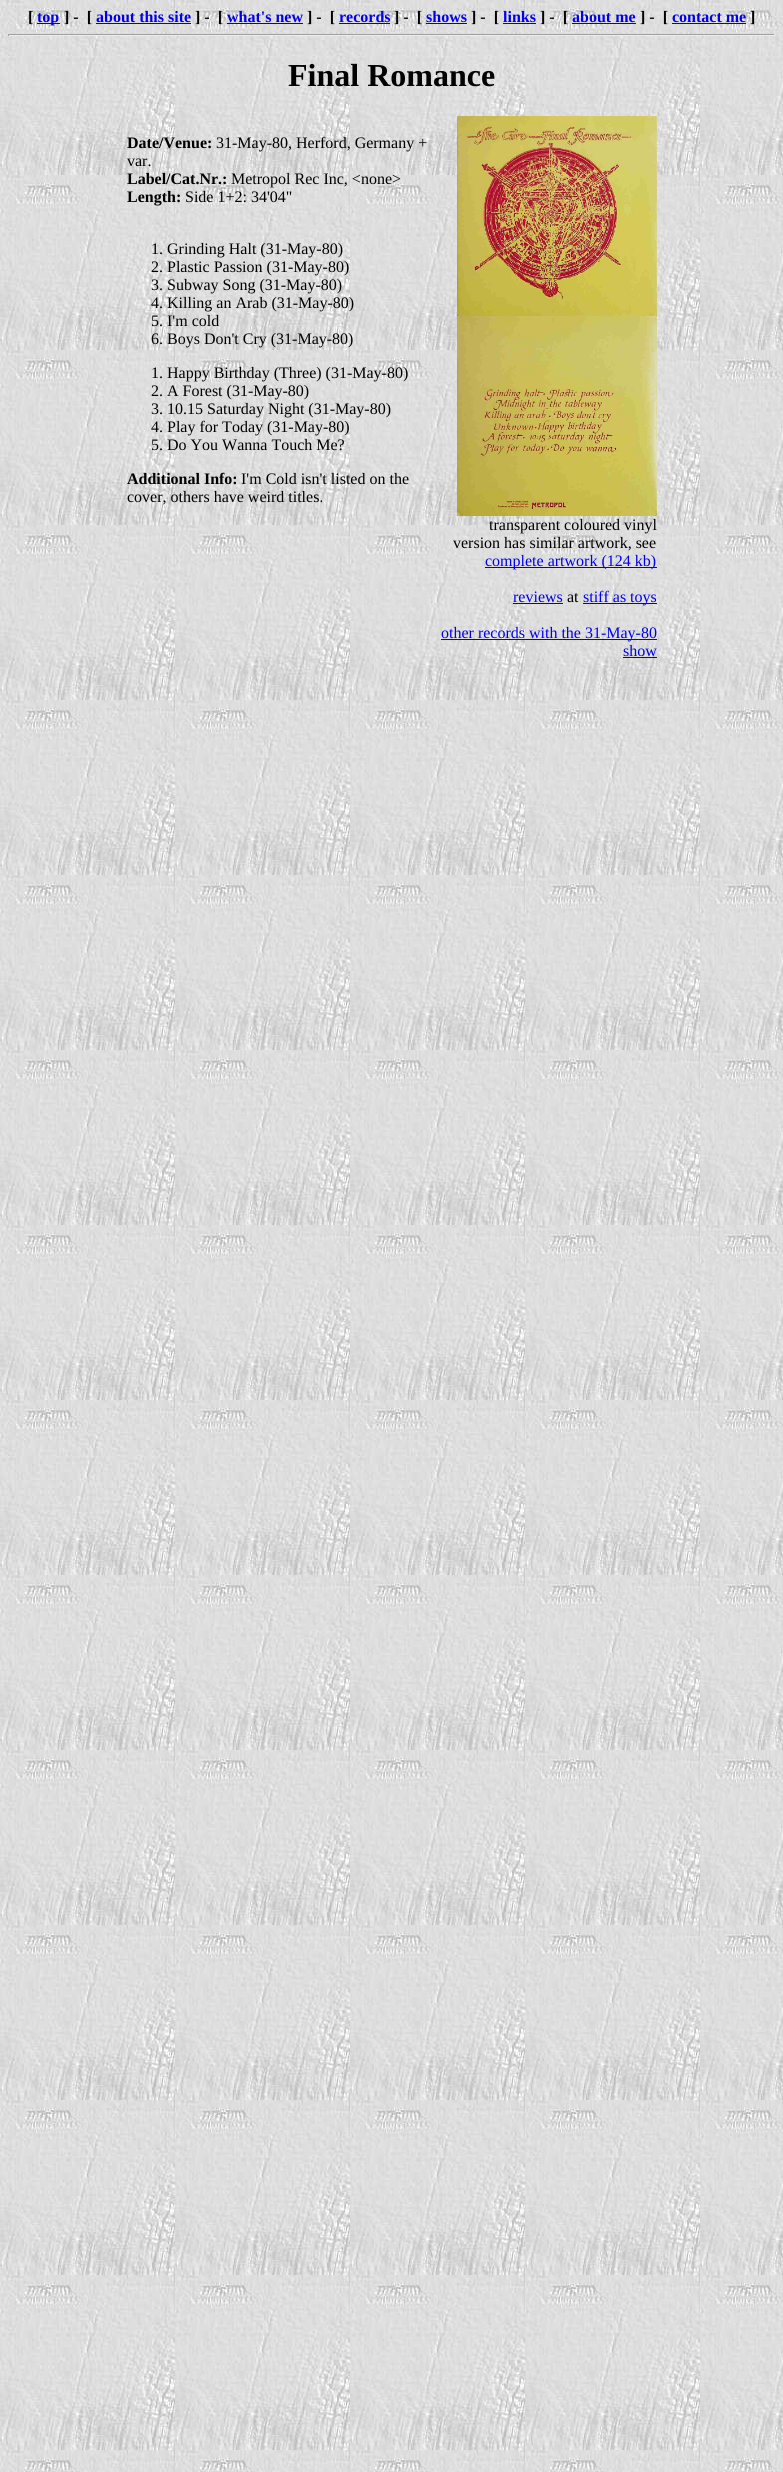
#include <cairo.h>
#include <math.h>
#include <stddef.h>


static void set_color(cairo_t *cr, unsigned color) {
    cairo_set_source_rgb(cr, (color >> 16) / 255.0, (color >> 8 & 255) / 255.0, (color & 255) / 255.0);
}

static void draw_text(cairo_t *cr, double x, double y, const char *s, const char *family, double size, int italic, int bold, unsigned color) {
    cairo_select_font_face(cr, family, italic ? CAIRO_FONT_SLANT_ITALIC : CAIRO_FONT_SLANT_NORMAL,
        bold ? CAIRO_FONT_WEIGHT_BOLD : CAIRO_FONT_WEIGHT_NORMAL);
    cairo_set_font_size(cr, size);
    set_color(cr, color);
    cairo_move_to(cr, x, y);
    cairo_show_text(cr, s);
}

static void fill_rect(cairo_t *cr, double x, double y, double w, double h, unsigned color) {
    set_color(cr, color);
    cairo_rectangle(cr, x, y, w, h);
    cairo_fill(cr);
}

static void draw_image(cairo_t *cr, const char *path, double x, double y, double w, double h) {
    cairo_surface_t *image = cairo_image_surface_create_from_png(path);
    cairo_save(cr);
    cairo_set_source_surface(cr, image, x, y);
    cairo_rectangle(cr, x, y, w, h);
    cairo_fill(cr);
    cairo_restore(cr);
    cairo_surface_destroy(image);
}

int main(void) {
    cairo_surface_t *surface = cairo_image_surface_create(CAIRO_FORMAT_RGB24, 783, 2472);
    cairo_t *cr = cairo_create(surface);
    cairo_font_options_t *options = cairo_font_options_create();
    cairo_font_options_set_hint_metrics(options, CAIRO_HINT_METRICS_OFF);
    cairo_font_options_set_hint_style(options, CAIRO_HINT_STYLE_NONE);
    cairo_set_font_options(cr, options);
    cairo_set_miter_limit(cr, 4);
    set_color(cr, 0xFFFFFF);
    cairo_paint(cr);
    draw_image(cr, "assets/img1.png", 0, 0, 783, 2472);
    draw_text(cr, 28, 22, "[", "Liberation Serif", 16, 0, 1, 0x000000);
    fill_rect(cr, 37, 23, 23, 1, 0x0000EE);
    draw_text(cr, 37, 22, "top", "Liberation Serif", 16, 0, 1, 0x0000EE);
    draw_text(cr, 64, 22, "] -  [", "Liberation Serif", 16, 0, 1, 0x000000);
    draw_text(cr, 96, 22, "about this site", "Liberation Serif", 16, 0, 1, 0x0000EE);
    fill_rect(cr, 96, 23, 95, 1, 0x0000EE);
    draw_text(cr, 195, 22, "] -  [", "Liberation Serif", 16, 0, 1, 0x000000);
    draw_text(cr, 227, 22, "what's new", "Liberation Serif", 16, 0, 1, 0x0000EE);
    fill_rect(cr, 227, 23, 76, 1, 0x0000EE);
    draw_text(cr, 307, 22, "] -  [", "Liberation Serif", 16, 0, 1, 0x000000);
    draw_text(cr, 339, 22, "records", "Liberation Serif", 16, 0, 1, 0x0000EE);
    fill_rect(cr, 339, 23, 51, 1, 0x0000EE);
    draw_text(cr, 394, 22, "] -  [", "Liberation Serif", 16, 0, 1, 0x000000);
    draw_text(cr, 426, 22, "shows", "Liberation Serif", 16, 0, 1, 0x0000EE);
    fill_rect(cr, 426, 23, 41, 1, 0x0000EE);
    draw_text(cr, 471, 22, "] -  [", "Liberation Serif", 16, 0, 1, 0x000000);
    draw_text(cr, 503, 22, "links", "Liberation Serif", 16, 0, 1, 0x0000EE);
    fill_rect(cr, 503, 23, 33, 1, 0x0000EE);
    draw_text(cr, 540, 22, "] -  [", "Liberation Serif", 16, 0, 1, 0x000000);
    draw_text(cr, 572, 22, "about me", "Liberation Serif", 16, 0, 1, 0x0000EE);
    fill_rect(cr, 572, 23, 64, 1, 0x0000EE);
    draw_text(cr, 640, 22, "] -  [", "Liberation Serif", 16, 0, 1, 0x000000);
    draw_text(cr, 672, 22, "contact me", "Liberation Serif", 16, 0, 1, 0x0000EE);
    fill_rect(cr, 672, 23, 74, 1, 0x0000EE);
    draw_text(cr, 750, 22, "]", "Liberation Serif", 16, 0, 1, 0x000000);
    fill_rect(cr, 8, 34, 767, 1, 0x9F9F9F);
    fill_rect(cr, 774, 34, 1, 2, 0xEEEEEE);
    fill_rect(cr, 8, 35, 767, 1, 0xEEEEEE);
    fill_rect(cr, 8, 34, 1, 2, 0x9F9F9F);
    draw_text(cr, 288, 86, "Final Romance", "Liberation Serif", 32, 0, 1, 0x000000);
    draw_text(cr, 127, 148, "Date/Venue:", "Liberation Serif", 16, 0, 1, 0x000000);
    draw_text(cr, 216, 148, "31-May-80, Herford, Germany +", "Liberation Serif", 16, 0, 0, 0x000000);
    draw_text(cr, 127, 166, "var.", "Liberation Serif", 16, 0, 0, 0x000000);
    draw_text(cr, 127, 184, "Label/Cat.Nr.:", "Liberation Serif", 16, 0, 1, 0x000000);
    draw_text(cr, 231, 184, "Metropol Rec Inc, <none>", "Liberation Serif", 16, 0, 0, 0x000000);
    draw_text(cr, 127, 202, "Length:", "Liberation Serif", 16, 0, 1, 0x000000);
    draw_text(cr, 185, 202, "Side 1+2: 34'04\"", "Liberation Serif", 16, 0, 0, 0x000000);
    draw_text(cr, 151, 254, "1. Grinding Halt (31-May-80)", "Liberation Serif", 16, 0, 0, 0x000000);
    draw_text(cr, 151, 272, "2. Plastic Passion (31-May-80)", "Liberation Serif", 16, 0, 0, 0x000000);
    draw_text(cr, 151, 290, "3. Subway Song (31-May-80)", "Liberation Serif", 16, 0, 0, 0x000000);
    draw_text(cr, 151, 308, "4. Killing an Arab (31-May-80)", "Liberation Serif", 16, 0, 0, 0x000000);
    draw_text(cr, 151, 326, "5. I'm cold", "Liberation Serif", 16, 0, 0, 0x000000);
    draw_text(cr, 151, 344, "6. Boys Don't Cry (31-May-80)", "Liberation Serif", 16, 0, 0, 0x000000);
    draw_text(cr, 151, 378, "1. Happy Birthday (Three) (31-May-80)", "Liberation Serif", 16, 0, 0, 0x000000);
    draw_text(cr, 151, 396, "2. A Forest (31-May-80)", "Liberation Serif", 16, 0, 0, 0x000000);
    draw_text(cr, 151, 414, "3. 10.15 Saturday Night (31-May-80)", "Liberation Serif", 16, 0, 0, 0x000000);
    draw_text(cr, 151, 432, "4. Play for Today (31-May-80)", "Liberation Serif", 16, 0, 0, 0x000000);
    draw_text(cr, 151, 450, "5. Do You Wanna Touch Me?", "Liberation Serif", 16, 0, 0, 0x000000);
    draw_text(cr, 127, 484, "Additional Info:", "Liberation Serif", 16, 0, 1, 0x000000);
    draw_text(cr, 241, 484, "I'm Cold isn't listed on the", "Liberation Serif", 16, 0, 0, 0x000000);
    draw_text(cr, 127, 502, "cover, others have weird titles.", "Liberation Serif", 16, 0, 0, 0x000000);
    draw_image(cr, "assets/img2.png", 457, 116, 200, 200);
    draw_image(cr, "assets/img3.png", 457, 316, 200, 200);
    draw_text(cr, 489, 530, "transparent coloured vinyl", "Liberation Serif", 16, 0, 0, 0x000000);
    draw_text(cr, 453, 548, "version has similar artwork, see", "Liberation Serif", 16, 0, 0, 0x000000);
    fill_rect(cr, 485, 567, 172, 1, 0x0000EE);
    draw_text(cr, 485, 566, "complete artwork (124 kb)", "Liberation Serif", 16, 0, 0, 0x0000EE);
    draw_text(cr, 513, 602, "reviews", "Liberation Serif", 16, 0, 0, 0x0000EE);
    fill_rect(cr, 513, 603, 50, 1, 0x0000EE);
    draw_text(cr, 567, 602, "at", "Liberation Serif", 16, 0, 0, 0x000000);
    fill_rect(cr, 583, 603, 74, 1, 0x0000EE);
    draw_text(cr, 583, 602, "stiff as toys", "Liberation Serif", 16, 0, 0, 0x0000EE);
    fill_rect(cr, 441, 639, 216, 1, 0x0000EE);
    draw_text(cr, 441, 638, "other records with the 31-May-80", "Liberation Serif", 16, 0, 0, 0x0000EE);
    draw_text(cr, 623, 656, "show", "Liberation Serif", 16, 0, 0, 0x0000EE);
    fill_rect(cr, 623, 657, 34, 1, 0x0000EE);
    cairo_surface_write_to_png(surface, "output.png");
    cairo_font_options_destroy(options);
    cairo_destroy(cr);
    cairo_surface_destroy(surface);
    return 0;
}
